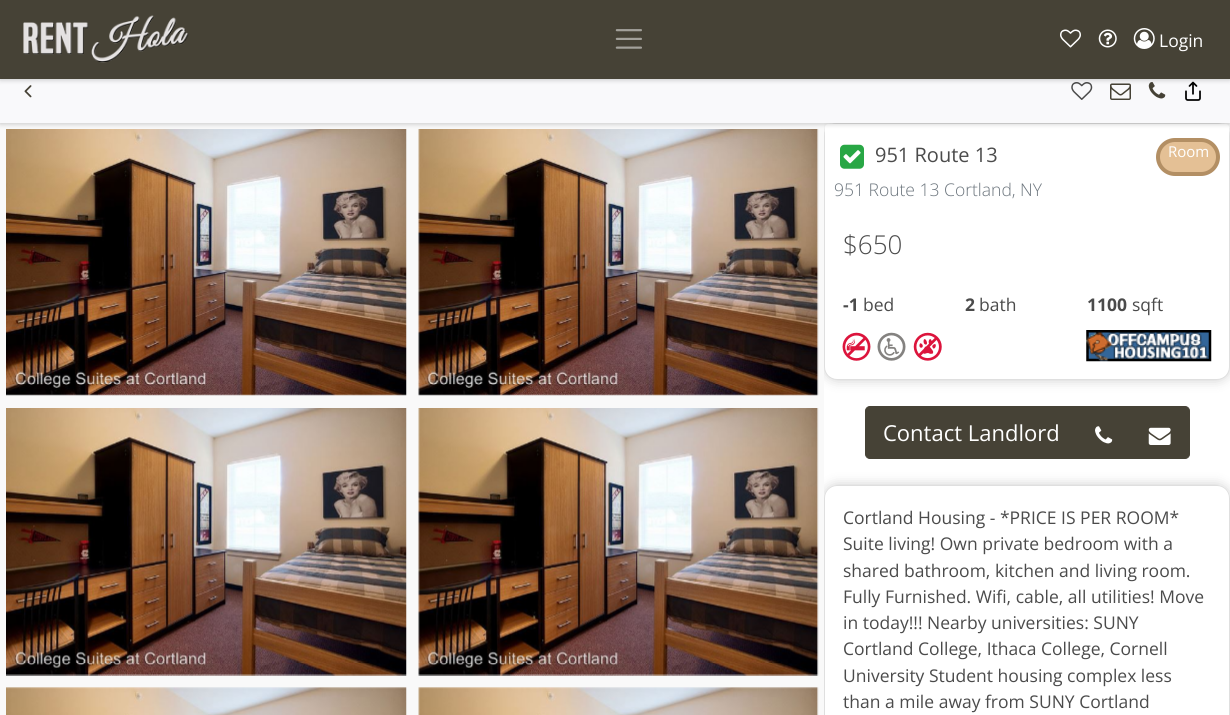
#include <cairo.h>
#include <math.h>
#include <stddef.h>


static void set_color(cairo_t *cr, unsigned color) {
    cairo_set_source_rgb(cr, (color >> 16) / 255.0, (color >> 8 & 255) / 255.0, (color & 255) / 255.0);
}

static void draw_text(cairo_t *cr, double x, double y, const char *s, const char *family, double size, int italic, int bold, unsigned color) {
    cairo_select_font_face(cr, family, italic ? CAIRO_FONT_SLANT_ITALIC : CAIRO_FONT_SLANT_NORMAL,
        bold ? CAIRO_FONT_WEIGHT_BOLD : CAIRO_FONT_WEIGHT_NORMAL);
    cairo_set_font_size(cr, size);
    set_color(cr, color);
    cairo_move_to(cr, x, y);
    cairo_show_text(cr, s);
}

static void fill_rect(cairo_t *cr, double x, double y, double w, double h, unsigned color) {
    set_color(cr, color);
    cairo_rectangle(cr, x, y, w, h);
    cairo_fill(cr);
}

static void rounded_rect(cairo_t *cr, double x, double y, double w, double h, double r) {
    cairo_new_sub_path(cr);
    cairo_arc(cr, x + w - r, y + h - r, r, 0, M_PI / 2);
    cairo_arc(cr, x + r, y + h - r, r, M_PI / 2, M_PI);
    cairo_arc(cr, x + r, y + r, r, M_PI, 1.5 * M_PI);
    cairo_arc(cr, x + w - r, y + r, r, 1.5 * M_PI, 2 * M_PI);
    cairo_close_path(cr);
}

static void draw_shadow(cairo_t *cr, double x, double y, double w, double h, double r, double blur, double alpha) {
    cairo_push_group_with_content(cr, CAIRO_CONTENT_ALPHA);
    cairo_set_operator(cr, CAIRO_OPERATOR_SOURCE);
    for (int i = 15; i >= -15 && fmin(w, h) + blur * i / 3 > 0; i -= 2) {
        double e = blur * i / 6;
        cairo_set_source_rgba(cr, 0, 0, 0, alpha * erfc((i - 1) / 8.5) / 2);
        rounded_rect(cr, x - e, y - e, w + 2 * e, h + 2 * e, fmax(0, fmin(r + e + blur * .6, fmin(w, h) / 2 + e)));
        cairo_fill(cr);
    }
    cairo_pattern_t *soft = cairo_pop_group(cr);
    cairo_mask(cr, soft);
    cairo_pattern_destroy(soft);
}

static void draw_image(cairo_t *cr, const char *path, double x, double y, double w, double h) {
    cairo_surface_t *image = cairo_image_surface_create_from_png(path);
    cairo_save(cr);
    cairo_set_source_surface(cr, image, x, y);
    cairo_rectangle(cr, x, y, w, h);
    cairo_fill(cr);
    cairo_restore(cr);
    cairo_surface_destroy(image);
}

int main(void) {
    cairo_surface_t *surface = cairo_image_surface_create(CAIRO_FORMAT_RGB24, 1230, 715);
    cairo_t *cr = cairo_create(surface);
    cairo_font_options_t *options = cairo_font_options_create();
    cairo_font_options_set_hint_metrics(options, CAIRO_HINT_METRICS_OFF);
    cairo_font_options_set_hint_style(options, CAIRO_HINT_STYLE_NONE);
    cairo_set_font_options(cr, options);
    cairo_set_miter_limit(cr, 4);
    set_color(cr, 0xFFFFFF);
    cairo_paint(cr);
    fill_rect(cr, 0, 123, 824, 592, 0xF9F9F9);
    draw_image(cr, "assets/img11.png", 6, 129, 401, 267);
    draw_image(cr, "assets/img12.png", 418, 129, 401, 267);
    cairo_save(cr);
    cairo_rectangle(cr, 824, 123, 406, 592);
    cairo_clip(cr);
    set_color(cr, 0x000000);
    draw_shadow(cr, 824, 123, 406, 257, 13, 6, 0.2);
    cairo_restore(cr);
    set_color(cr, 0xFFFFFF);
    rounded_rect(cr, 824.5, 123.5, 405, 256, 12.5);
    cairo_fill_preserve(cr);
    set_color(cr, 0xDFDFDF);
    cairo_set_line_width(cr, 1);
    cairo_stroke(cr);
    set_color(cr, 0xFFFFFF);
    cairo_new_path(cr);
    cairo_move_to(cr, 828, 124);
    cairo_line_to(cr, 1226, 124);
    cairo_curve_to(cr, 1227.5, 124, 1229, 125.5, 1229, 127);
    cairo_line_to(cr, 1229, 211);
    cairo_line_to(cr, 825, 211);
    cairo_line_to(cr, 825, 127);
    cairo_curve_to(cr, 825, 125.5, 826.5, 124, 828, 124);
    cairo_close_path(cr);
    cairo_fill(cr);
    set_color(cr, 0x000000);
    draw_shadow(cr, 0, 63, 1230, 61, 0, 2.5, 0.2);
    fill_rect(cr, 0, 79, 1230, 44, 0xF9F9FB);
    draw_image(cr, "assets/img6.png", 24, 85, 8, 13);
    draw_image(cr, "assets/img7.png", 1071, 82, 22, 18);
    draw_image(cr, "assets/img8.png", 1110, 83, 21, 17);
    draw_image(cr, "assets/img9.png", 1148, 82, 18, 17);
    draw_image(cr, "assets/img10.png", 1185, 81, 16, 20);
    set_color(cr, 0x000000);
    draw_shadow(cr, 0, 1, 1230, 79, 0, 2.5, 0.2);
    fill_rect(cr, 0, 0, 1230, 79, 0x464236);
    draw_image(cr, "assets/img1.png", 23, 15, 166, 48);
    draw_image(cr, "assets/img2.png", 615, 29, 27, 20);
    draw_image(cr, "assets/img3.png", 1060, 29, 21, 19);
    draw_image(cr, "assets/img4.png", 1098, 29, 19, 19);
    draw_image(cr, "assets/img5.png", 1133, 28, 22, 21);
    draw_text(cr, 1159, 47, "Login", "Open Sans", 17.5, 0, 0, 0xFFFFFF);
    draw_image(cr, "assets/img13.png", 6, 408, 401, 268);
    draw_image(cr, "assets/img14.png", 418, 408, 401, 268);
    draw_image(cr, "assets/img15.png", 6, 687, 401, 28);
    draw_image(cr, "assets/img16.png", 418, 687, 401, 28);
    draw_image(cr, "assets/img17.png", 840, 144, 24, 25);
    draw_text(cr, 875, 162, "951 Route 13", "Open Sans", 20, 0, 0, 0x4B4B4B);
    set_color(cr, 0xE4C095);
    rounded_rect(cr, 1158, 140, 60, 34, 17);
    cairo_fill_preserve(cr);
    set_color(cr, 0xB38F64);
    cairo_set_line_width(cr, 4);
    cairo_stroke(cr);
    draw_text(cr, 1168, 157, "Room", "Open Sans", 15, 0, 0, 0xFFFFFF);
    draw_text(cr, 834, 196, "951 Route 13 Cortland, NY", "Open Sans Light", 17.5, 0, 0, 0x6C757D);
    draw_text(cr, 843, 254, "$650", "Open Sans Light", 26, 0, 0, 0x4B4B4B);
    draw_text(cr, 843, 311, "-1", "Open Sans", 17.5, 0, 1, 0x4B4B4B);
    draw_text(cr, 863, 311, "bed", "Open Sans", 17.5, 0, 0, 0x4B4B4B);
    draw_text(cr, 965, 311, "2", "Open Sans", 17.5, 0, 1, 0x4B4B4B);
    draw_text(cr, 979, 311, "bath", "Open Sans", 17.5, 0, 0, 0x4B4B4B);
    draw_text(cr, 1087, 311, "1100", "Open Sans", 17.5, 0, 1, 0x4B4B4B);
    draw_text(cr, 1132, 311, "sqft", "Open Sans", 17.5, 0, 0, 0x4B4B4B);
    draw_image(cr, "assets/img18.png", 842, 332, 29, 29);
    draw_image(cr, "assets/img19.png", 877, 332, 29, 29);
    draw_image(cr, "assets/img20.png", 913, 332, 29, 29);
    draw_image(cr, "assets/img21.png", 1086, 330, 126, 32);
    set_color(cr, 0x464236);
    cairo_new_path(cr);
    cairo_move_to(cr, 870, 406.5);
    cairo_line_to(cr, 1077.5, 406.5);
    cairo_line_to(cr, 1077.5, 458.5);
    cairo_line_to(cr, 870, 458.5);
    cairo_curve_to(cr, 867.5, 458.5, 865.5, 456.5, 865.5, 454);
    cairo_line_to(cr, 865.5, 411);
    cairo_curve_to(cr, 865.5, 408.5, 867.5, 406.5, 870, 406.5);
    cairo_close_path(cr);
    cairo_fill_preserve(cr);
    cairo_set_line_width(cr, 1);
    cairo_stroke(cr);
    draw_text(cr, 883, 441, "Contact Landlord", "Open Sans", 22, 0, 0, 0xFFFFFF);
    fill_rect(cr, 1078, 406, 52, 53, 0x464236);
    draw_image(cr, "assets/img22.png", 1095, 426, 18, 18);
    cairo_new_path(cr);
    cairo_move_to(cr, 1130.5, 406.5);
    cairo_line_to(cr, 1185, 406.5);
    cairo_curve_to(cr, 1187.5, 406.5, 1189.5, 408.5, 1189.5, 411);
    cairo_line_to(cr, 1189.5, 454);
    cairo_curve_to(cr, 1189.5, 456.5, 1187.5, 458.5, 1185, 458.5);
    cairo_line_to(cr, 1130.5, 458.5);
    cairo_close_path(cr);
    cairo_fill_preserve(cr);
    cairo_stroke(cr);
    draw_image(cr, "assets/img23.png", 1148, 427, 23, 18);
    cairo_save(cr);
    cairo_rectangle(cr, 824, 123, 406, 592);
    cairo_clip(cr);
    set_color(cr, 0x000000);
    draw_shadow(cr, 824, 485, 406, 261, 13, 6, 0.2);
    cairo_restore(cr);
    set_color(cr, 0xFFFFFF);
    cairo_new_path(cr);
    cairo_move_to(cr, 837, 485);
    cairo_line_to(cr, 1217, 485);
    cairo_curve_to(cr, 1224, 485, 1230, 491, 1230, 498);
    cairo_line_to(cr, 1230, 715);
    cairo_line_to(cr, 824, 715);
    cairo_line_to(cr, 824, 498);
    cairo_curve_to(cr, 824, 491, 830, 485, 837, 485);
    cairo_close_path(cr);
    cairo_fill(cr);
    rounded_rect(cr, 824.5, 485.5, 405, 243, 12.5);
    set_color(cr, 0xDFDFDF);
    cairo_stroke(cr);
    draw_text(cr, 843, 524, "Cortland Housing - *PRICE IS PER ROOM*", "Open Sans", 17.5, 0, 0, 0x4B4B4B);
    draw_text(cr, 843, 550, "Suite living! Own private bedroom with a", "Open Sans", 17.5, 0, 0, 0x4B4B4B);
    draw_text(cr, 843, 577, "shared bathroom, kitchen and living room.", "Open Sans", 17.5, 0, 0, 0x4B4B4B);
    draw_text(cr, 843, 603, "Fully Furnished. Wifi, cable, all utilities! Move", "Open Sans", 17.5, 0, 0, 0x4B4B4B);
    draw_text(cr, 843, 629, "in today!!! Nearby universities: SUNY", "Open Sans", 17.5, 0, 0, 0x4B4B4B);
    draw_text(cr, 843, 655, "Cortland College, Ithaca College, Cornell", "Open Sans", 17.5, 0, 0, 0x4B4B4B);
    draw_text(cr, 843, 682, "University Student housing complex less", "Open Sans", 17.5, 0, 0, 0x4B4B4B);
    draw_text(cr, 843, 708, "than a mile away from SUNY Cortland", "Open Sans", 17.5, 0, 0, 0x4B4B4B);
    cairo_surface_write_to_png(surface, "output.png");
    cairo_font_options_destroy(options);
    cairo_destroy(cr);
    cairo_surface_destroy(surface);
    return 0;
}
